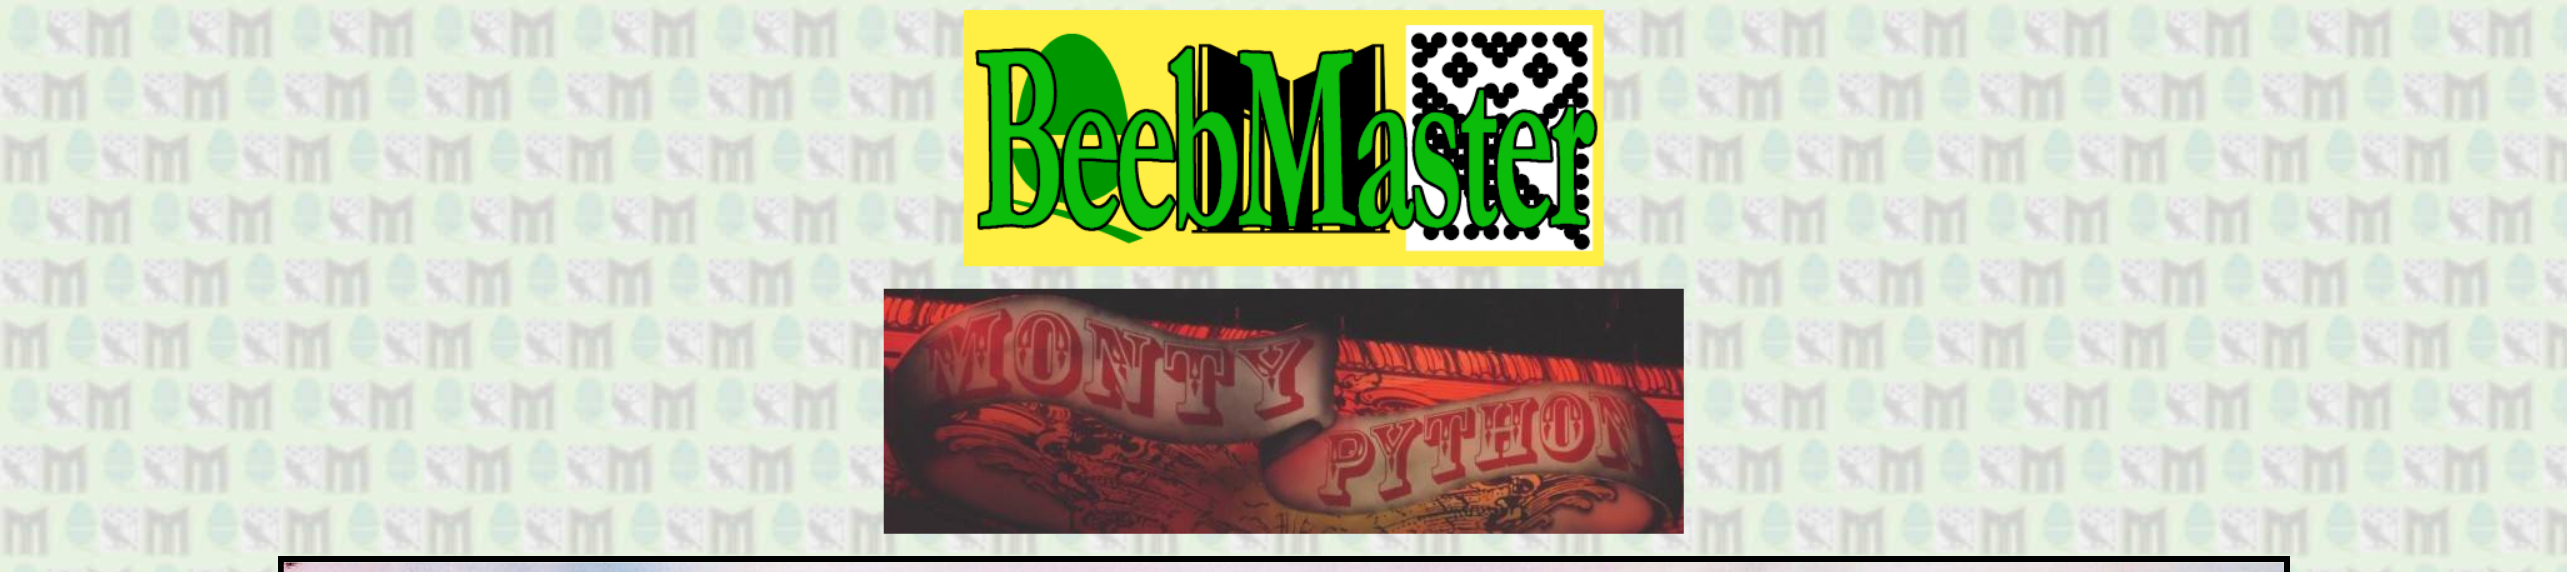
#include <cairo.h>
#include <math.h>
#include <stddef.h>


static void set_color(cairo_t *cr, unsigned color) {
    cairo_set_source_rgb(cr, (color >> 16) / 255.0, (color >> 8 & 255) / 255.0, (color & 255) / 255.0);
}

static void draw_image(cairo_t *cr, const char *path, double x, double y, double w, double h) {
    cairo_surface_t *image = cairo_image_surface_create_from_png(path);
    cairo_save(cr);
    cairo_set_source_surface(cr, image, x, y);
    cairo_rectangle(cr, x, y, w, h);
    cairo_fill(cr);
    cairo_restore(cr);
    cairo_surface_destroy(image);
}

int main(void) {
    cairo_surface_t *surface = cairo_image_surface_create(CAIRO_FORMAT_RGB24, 2567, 572);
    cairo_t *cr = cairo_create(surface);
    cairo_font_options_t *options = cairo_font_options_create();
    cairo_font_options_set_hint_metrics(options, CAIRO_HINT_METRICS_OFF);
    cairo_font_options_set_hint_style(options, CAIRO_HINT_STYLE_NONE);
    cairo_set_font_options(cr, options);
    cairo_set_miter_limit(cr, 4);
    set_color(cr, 0xFFFFFF);
    cairo_paint(cr);
    draw_image(cr, "assets/img1.png", 0, 0, 2567, 572);
    draw_image(cr, "assets/img2.png", 963, 10, 641, 257);
    draw_image(cr, "assets/img3.png", 883, 288, 801, 246);
    cairo_rectangle(cr, 281, 559, 2006, 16);
    set_color(cr, 0x000000);
    cairo_set_line_width(cr, 6);
    cairo_stroke(cr);
    draw_image(cr, "assets/img4.png", 283, 562, 2001, 10);
    cairo_surface_write_to_png(surface, "output.png");
    cairo_font_options_destroy(options);
    cairo_destroy(cr);
    cairo_surface_destroy(surface);
    return 0;
}
